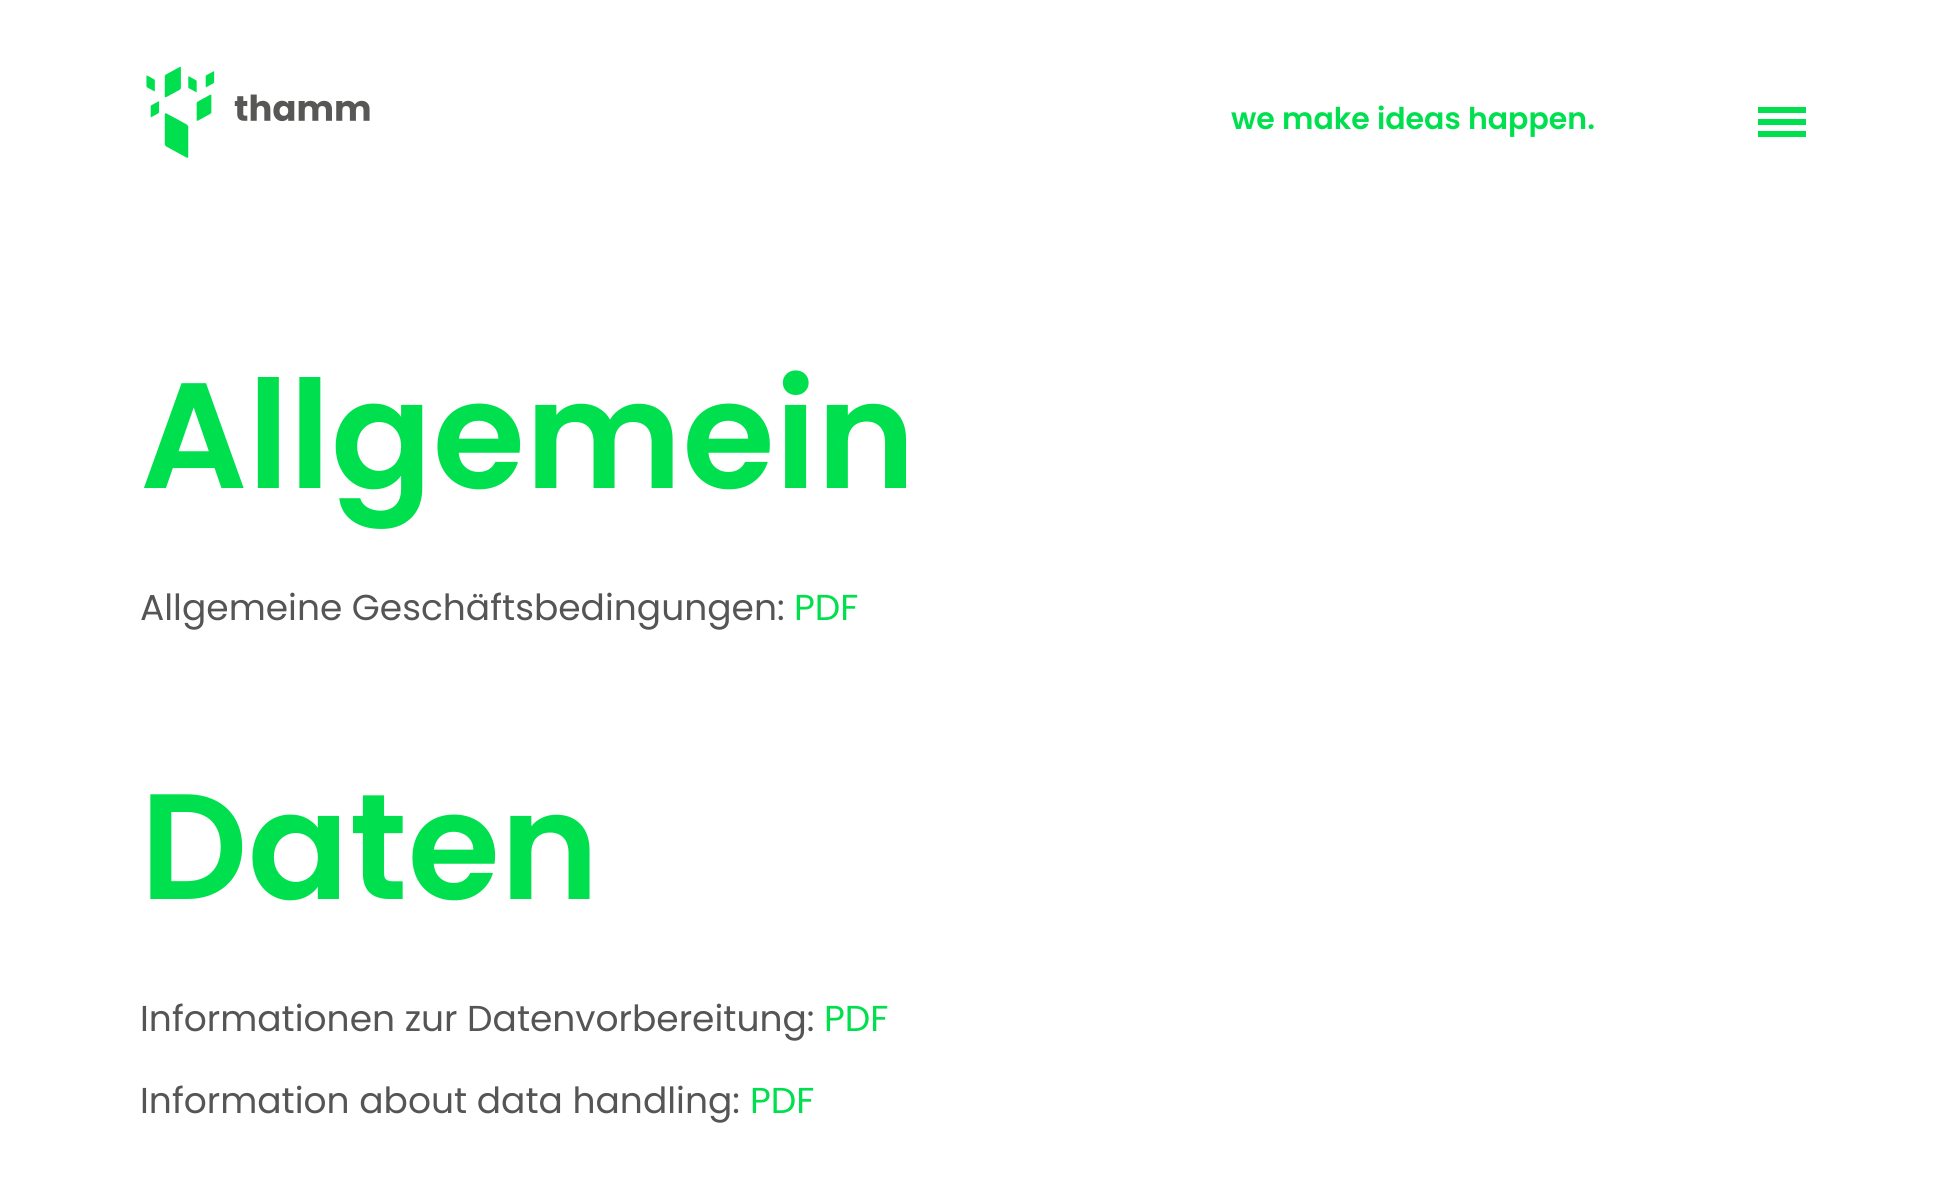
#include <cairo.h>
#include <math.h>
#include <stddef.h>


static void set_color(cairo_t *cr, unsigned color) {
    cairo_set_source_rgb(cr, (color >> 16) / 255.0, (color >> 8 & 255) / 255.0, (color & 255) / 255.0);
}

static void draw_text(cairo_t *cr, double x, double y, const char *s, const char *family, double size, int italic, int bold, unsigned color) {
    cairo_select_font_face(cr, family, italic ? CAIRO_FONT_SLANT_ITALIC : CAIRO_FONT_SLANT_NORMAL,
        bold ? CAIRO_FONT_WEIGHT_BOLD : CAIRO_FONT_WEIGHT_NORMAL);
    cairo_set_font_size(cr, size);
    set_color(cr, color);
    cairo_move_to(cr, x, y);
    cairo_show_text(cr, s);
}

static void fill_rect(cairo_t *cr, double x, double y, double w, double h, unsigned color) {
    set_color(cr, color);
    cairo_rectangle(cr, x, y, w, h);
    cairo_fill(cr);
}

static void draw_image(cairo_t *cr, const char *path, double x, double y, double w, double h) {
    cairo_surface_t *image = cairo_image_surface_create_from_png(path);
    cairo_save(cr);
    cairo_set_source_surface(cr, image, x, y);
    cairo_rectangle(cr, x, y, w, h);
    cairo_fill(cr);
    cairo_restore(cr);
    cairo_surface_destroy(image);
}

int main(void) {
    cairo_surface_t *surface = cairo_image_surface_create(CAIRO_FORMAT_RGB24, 1945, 1178);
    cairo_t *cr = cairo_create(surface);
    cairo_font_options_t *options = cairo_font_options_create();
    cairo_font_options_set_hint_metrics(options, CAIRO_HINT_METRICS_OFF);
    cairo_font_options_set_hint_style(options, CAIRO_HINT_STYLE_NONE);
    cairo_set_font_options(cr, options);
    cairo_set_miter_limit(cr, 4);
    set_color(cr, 0xFFFFFF);
    cairo_paint(cr);
    draw_image(cr, "assets/img1.png", 146, 66, 224, 92);
    draw_text(cr, 1231, 129, "we make ideas happen.", "Poppins SemiBold", 30, 0, 0, 0x00E04E);
    fill_rect(cr, 1758, 107, 48, 6, 0x00E04E);
    fill_rect(cr, 1758, 119, 48, 6, 0x00E04E);
    fill_rect(cr, 1758, 131, 48, 6, 0x00E04E);
    draw_text(cr, 140, 488, "Allgemein", "Poppins SemiBold", 150, 0, 0, 0x00E04E);
    draw_text(cr, 140, 620, "Allgemeine Geschäftsbedingungen:", "Poppins", 36, 0, 0, 0x555555);
    draw_text(cr, 794, 620, "PDF", "Poppins", 36, 0, 0, 0x00E04E);
    draw_text(cr, 140, 899, "Daten", "Poppins SemiBold", 150, 0, 0, 0x00E04E);
    draw_text(cr, 140, 1031, "Informationen zur Datenvorbereitung:", "Poppins", 36, 0, 0, 0x555555);
    draw_text(cr, 824, 1031, "PDF", "Poppins", 36, 0, 0, 0x00E04E);
    draw_text(cr, 140, 1113, "Information about data handling:", "Poppins", 36, 0, 0, 0x555555);
    draw_text(cr, 750, 1113, "PDF", "Poppins", 36, 0, 0, 0x00E04E);
    cairo_surface_write_to_png(surface, "output.png");
    cairo_font_options_destroy(options);
    cairo_destroy(cr);
    cairo_surface_destroy(surface);
    return 0;
}
